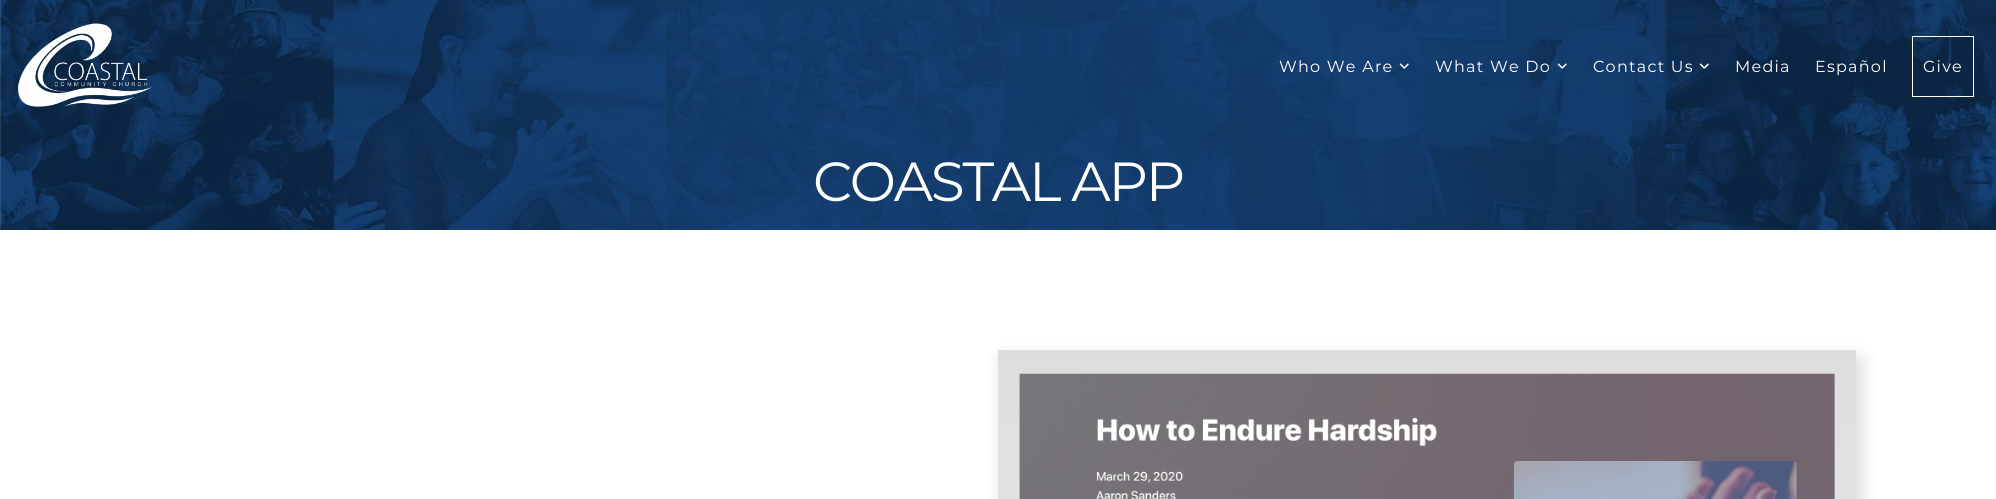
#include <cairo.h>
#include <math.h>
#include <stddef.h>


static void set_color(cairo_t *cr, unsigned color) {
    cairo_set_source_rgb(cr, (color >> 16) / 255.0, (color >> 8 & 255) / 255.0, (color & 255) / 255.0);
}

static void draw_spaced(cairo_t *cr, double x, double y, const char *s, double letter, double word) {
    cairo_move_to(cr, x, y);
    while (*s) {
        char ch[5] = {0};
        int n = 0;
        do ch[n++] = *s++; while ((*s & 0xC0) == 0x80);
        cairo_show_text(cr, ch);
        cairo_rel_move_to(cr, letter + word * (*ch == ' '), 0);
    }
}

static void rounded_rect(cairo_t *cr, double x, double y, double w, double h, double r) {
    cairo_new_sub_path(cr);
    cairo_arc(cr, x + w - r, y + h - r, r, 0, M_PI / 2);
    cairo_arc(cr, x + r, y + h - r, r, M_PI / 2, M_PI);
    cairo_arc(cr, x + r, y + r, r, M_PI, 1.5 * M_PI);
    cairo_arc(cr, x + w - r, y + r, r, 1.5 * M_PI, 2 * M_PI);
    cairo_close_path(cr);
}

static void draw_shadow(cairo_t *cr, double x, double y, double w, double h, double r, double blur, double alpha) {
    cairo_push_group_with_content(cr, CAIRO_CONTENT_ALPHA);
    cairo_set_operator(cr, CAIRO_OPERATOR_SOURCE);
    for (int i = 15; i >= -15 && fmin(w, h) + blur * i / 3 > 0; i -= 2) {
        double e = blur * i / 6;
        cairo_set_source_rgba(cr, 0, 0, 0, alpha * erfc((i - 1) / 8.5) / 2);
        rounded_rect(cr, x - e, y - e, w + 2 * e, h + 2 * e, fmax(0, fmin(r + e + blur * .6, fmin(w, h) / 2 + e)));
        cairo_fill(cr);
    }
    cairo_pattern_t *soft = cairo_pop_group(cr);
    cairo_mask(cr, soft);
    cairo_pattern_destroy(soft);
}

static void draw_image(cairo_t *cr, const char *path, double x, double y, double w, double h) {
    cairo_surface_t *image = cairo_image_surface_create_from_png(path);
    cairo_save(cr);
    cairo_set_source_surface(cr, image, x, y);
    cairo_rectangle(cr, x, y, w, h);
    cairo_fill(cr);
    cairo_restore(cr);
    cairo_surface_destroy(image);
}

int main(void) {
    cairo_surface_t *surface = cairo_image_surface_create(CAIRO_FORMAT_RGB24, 1996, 499);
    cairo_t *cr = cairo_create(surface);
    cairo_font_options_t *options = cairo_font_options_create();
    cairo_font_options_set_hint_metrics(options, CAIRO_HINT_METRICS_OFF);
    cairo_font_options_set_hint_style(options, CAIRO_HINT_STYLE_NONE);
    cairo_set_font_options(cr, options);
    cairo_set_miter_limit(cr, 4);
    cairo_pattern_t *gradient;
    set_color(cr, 0xFFFFFF);
    cairo_paint(cr);
    draw_image(cr, "assets/img5.png", 0, 0, 1996, 230);
    draw_image(cr, "assets/img1.png", 18, 23, 134, 84);
    cairo_select_font_face(cr, "Montserrat", CAIRO_FONT_SLANT_NORMAL, CAIRO_FONT_WEIGHT_NORMAL);
    cairo_set_font_size(cr, 16);
    set_color(cr, 0xFFFFFF);
    draw_spaced(cr, 1279, 72, "Who We Are", 1.25, 0);
    draw_image(cr, "assets/img2.png", 1399, 63, 10, 6);
    draw_spaced(cr, 1435, 72, "What We Do", 1.25, 0);
    draw_image(cr, "assets/img3.png", 1557, 63, 10, 6);
    draw_spaced(cr, 1593, 72, "Contact Us", 1.25, 0);
    draw_image(cr, "assets/img4.png", 1699, 63, 10, 6);
    draw_spaced(cr, 1735, 72, "Media", 1.25, 0);
    draw_spaced(cr, 1815, 72, "Español", 1.25, 0);
    cairo_rectangle(cr, 1912.5, 36.5, 61, 60);
    cairo_set_line_width(cr, 1);
    cairo_stroke(cr);
    draw_spaced(cr, 1923, 72, "Give", 1.25, 0);
    cairo_set_font_size(cr, 55);
    draw_spaced(cr, 813, 201, "COASTAL APP", -2.25, 0);
    set_color(cr, 0x000000);
    draw_shadow(cr, 1003, 360, 858, 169, 0, 10, 0.15);
    gradient = cairo_pattern_create_linear(1427, 350, 1427, 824);
    cairo_pattern_add_color_stop_rgba(gradient, 0, 0.867, 0.867, 0.867, 1);
    cairo_pattern_add_color_stop_rgba(gradient, 1, 0.933, 0.933, 0.933, 1);
    cairo_set_source(cr, gradient);
    cairo_pattern_destroy(gradient);
    cairo_rectangle(cr, 998, 350, 858, 149);
    cairo_fill(cr);
    draw_image(cr, "assets/img6.png", 1019, 373, 816, 126);
    cairo_surface_write_to_png(surface, "output.png");
    cairo_font_options_destroy(options);
    cairo_destroy(cr);
    cairo_surface_destroy(surface);
    return 0;
}
